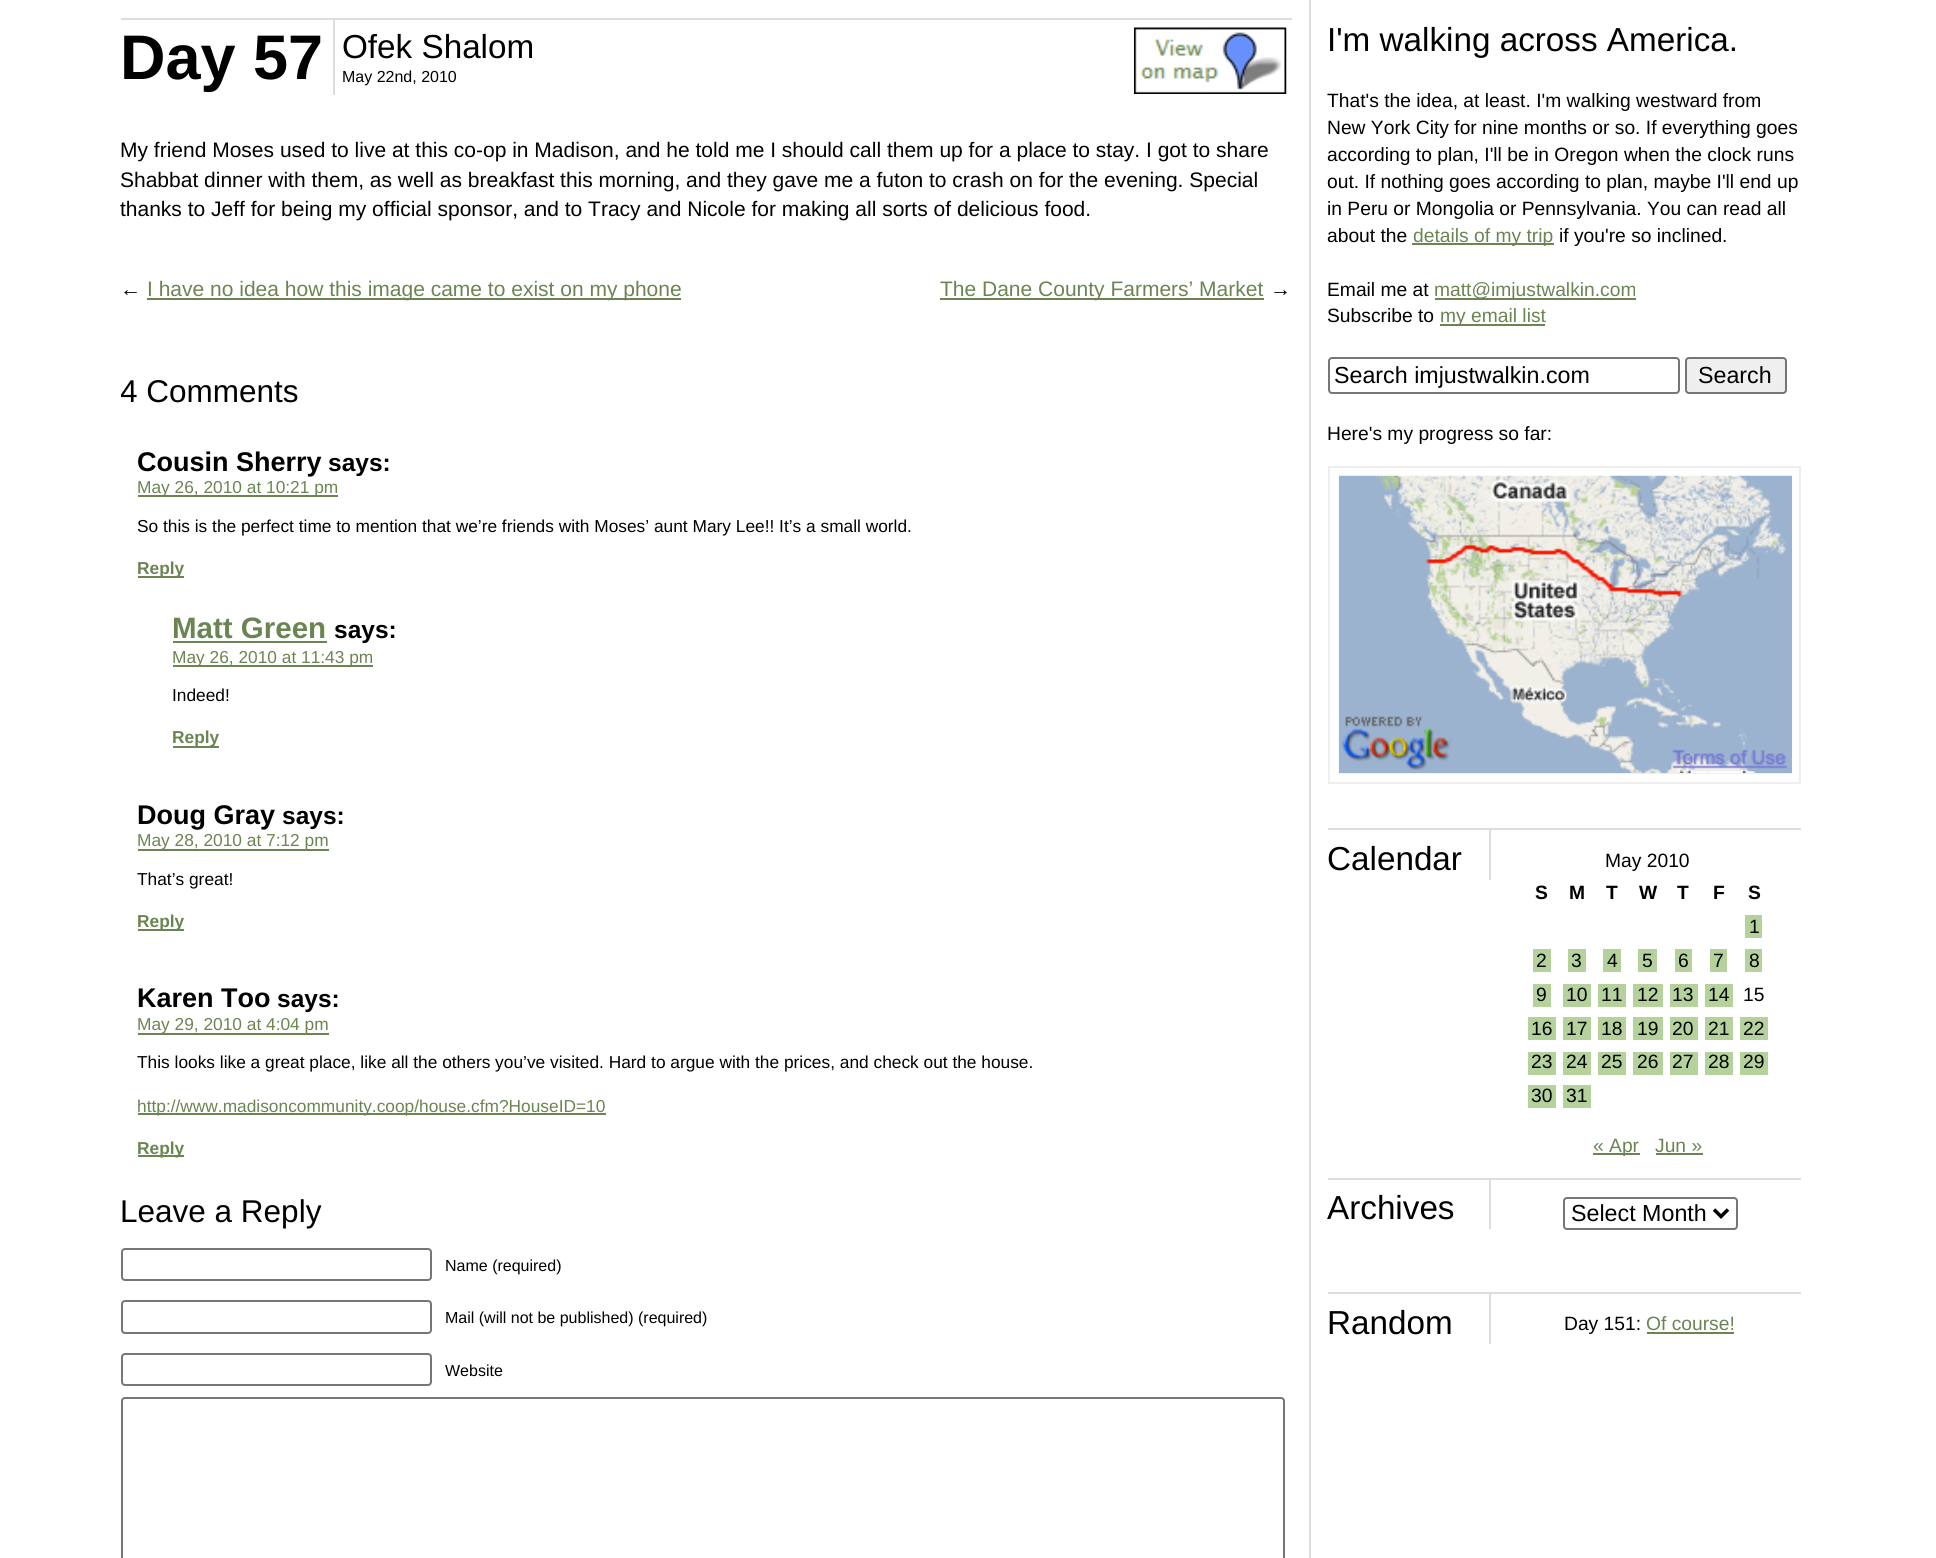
#include <cairo.h>
#include <math.h>
#include <stddef.h>


static void set_color(cairo_t *cr, unsigned color) {
    cairo_set_source_rgb(cr, (color >> 16) / 255.0, (color >> 8 & 255) / 255.0, (color & 255) / 255.0);
}

static void draw_text(cairo_t *cr, double x, double y, const char *s, const char *family, double size, int italic, int bold, unsigned color) {
    cairo_select_font_face(cr, family, italic ? CAIRO_FONT_SLANT_ITALIC : CAIRO_FONT_SLANT_NORMAL,
        bold ? CAIRO_FONT_WEIGHT_BOLD : CAIRO_FONT_WEIGHT_NORMAL);
    cairo_set_font_size(cr, size);
    set_color(cr, color);
    cairo_move_to(cr, x, y);
    cairo_show_text(cr, s);
}

static void fill_rect(cairo_t *cr, double x, double y, double w, double h, unsigned color) {
    set_color(cr, color);
    cairo_rectangle(cr, x, y, w, h);
    cairo_fill(cr);
}

static void rounded_rect(cairo_t *cr, double x, double y, double w, double h, double r) {
    cairo_new_sub_path(cr);
    cairo_arc(cr, x + w - r, y + h - r, r, 0, M_PI / 2);
    cairo_arc(cr, x + r, y + h - r, r, M_PI / 2, M_PI);
    cairo_arc(cr, x + r, y + r, r, M_PI, 1.5 * M_PI);
    cairo_arc(cr, x + w - r, y + r, r, 1.5 * M_PI, 2 * M_PI);
    cairo_close_path(cr);
}

static void draw_image(cairo_t *cr, const char *path, double x, double y, double w, double h) {
    cairo_surface_t *image = cairo_image_surface_create_from_png(path);
    cairo_save(cr);
    cairo_set_source_surface(cr, image, x, y);
    cairo_rectangle(cr, x, y, w, h);
    cairo_fill(cr);
    cairo_restore(cr);
    cairo_surface_destroy(image);
}

int main(void) {
    cairo_surface_t *surface = cairo_image_surface_create(CAIRO_FORMAT_RGB24, 1936, 1558);
    cairo_t *cr = cairo_create(surface);
    cairo_font_options_t *options = cairo_font_options_create();
    cairo_font_options_set_hint_metrics(options, CAIRO_HINT_METRICS_OFF);
    cairo_font_options_set_hint_style(options, CAIRO_HINT_STYLE_NONE);
    cairo_set_font_options(cr, options);
    cairo_set_miter_limit(cr, 4);
    set_color(cr, 0xFFFFFF);
    cairo_paint(cr);
    fill_rect(cr, 1309, 0, 2, 1558, 0xDDDDDD);
    fill_rect(cr, 121, 18, 1171, 2, 0xDDDDDD);
    fill_rect(cr, 333, 19, 2, 76, 0xDDDDDD);
    draw_text(cr, 120, 79, "Day 57", "Liberation Sans", 63, 0, 1, 0x000000);
    draw_text(cr, 342, 58, "Ofek Shalom", "Liberation Sans", 33.25, 0, 0, 0x000000);
    draw_text(cr, 342, 82, "May 22nd, 2010", "Liberation Sans", 16, 0, 0, 0x000000);
    draw_image(cr, "assets/img1.png", 1134, 27, 153, 67);
    draw_text(cr, 120, 157, "My friend Moses used to live at this co-op in Madison, and he told me I should call them up for a place to stay. I got to share", "Liberation Sans", 21, 0, 0, 0x000000);
    draw_text(cr, 120, 187, "Shabbat dinner with them, as well as breakfast this morning, and they gave me a futon to crash on for the evening. Special", "Liberation Sans", 21, 0, 0, 0x000000);
    draw_text(cr, 120, 216, "thanks to Jeff for being my official sponsor, and to Tracy and Nicole for making all sorts of delicious food.", "Liberation Sans", 21, 0, 0, 0x000000);
    draw_text(cr, 120, 296, "←", "Liberation Sans", 21, 0, 0, 0x000000);
    fill_rect(cr, 147, 298, 534, 2, 0x6A8552);
    draw_text(cr, 147, 296, "I have no idea how this image came to exist on my phone", "Liberation Sans", 21, 0, 0, 0x6A8552);
    fill_rect(cr, 940, 298, 324, 2, 0x6A8552);
    draw_text(cr, 940, 296, "The Dane County Farmers’ Market", "Liberation Sans", 21, 0, 0, 0x6A8552);
    draw_text(cr, 1270, 296, "→", "Liberation Sans", 21, 0, 0, 0x000000);
    cairo_save(cr);
    cairo_rectangle(cr, 121, 0, 1697, 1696);
    cairo_clip(cr);
    draw_text(cr, 120, 402, "4 Comments", "Liberation Sans", 31.5, 0, 0, 0x000000);
    cairo_restore(cr);
    draw_text(cr, 137, 471, "Cousin Sherry", "Liberation Sans", 27, 0, 1, 0x000000);
    draw_text(cr, 328, 471, "says:", "Liberation Sans", 24.5, 0, 1, 0x000000);
    fill_rect(cr, 138, 495, 200, 2, 0x6A8552);
    draw_text(cr, 137, 493, "May 26, 2010 at 10:21 pm", "Liberation Sans", 17.32, 0, 0, 0x6A8552);
    draw_text(cr, 137, 532, "So this is the perfect time to mention that we’re friends with Moses’ aunt Mary Lee!! It’s a small world.", "Liberation Sans", 17.32, 0, 0, 0x000000);
    fill_rect(cr, 138, 576, 46, 2, 0x6A8552);
    draw_text(cr, 137, 574, "Reply", "Liberation Sans", 17.32, 0, 1, 0x6A8552);
    draw_text(cr, 172, 638, "Matt Green", "Liberation Sans", 29.5, 0, 1, 0x6A8552);
    fill_rect(cr, 173, 641, 154, 2, 0x6A8552);
    draw_text(cr, 334, 638, "says:", "Liberation Sans", 24.5, 0, 1, 0x000000);
    fill_rect(cr, 173, 665, 200, 2, 0x6A8552);
    draw_text(cr, 172, 663, "May 26, 2010 at 11:43 pm", "Liberation Sans", 17.32, 0, 0, 0x6A8552);
    draw_text(cr, 172, 701, "Indeed!", "Liberation Sans", 17.32, 0, 0, 0x000000);
    fill_rect(cr, 173, 746, 46, 2, 0x6A8552);
    draw_text(cr, 172, 743, "Reply", "Liberation Sans", 17.32, 0, 1, 0x6A8552);
    draw_text(cr, 137, 824, "Doug Gray", "Liberation Sans", 27, 0, 1, 0x000000);
    draw_text(cr, 282, 824, "says:", "Liberation Sans", 24.5, 0, 1, 0x000000);
    fill_rect(cr, 138, 849, 191, 2, 0x6A8552);
    draw_text(cr, 137, 846, "May 28, 2010 at 7:12 pm", "Liberation Sans", 17.32, 0, 0, 0x6A8552);
    draw_text(cr, 137, 885, "That’s great!", "Liberation Sans", 17.32, 0, 0, 0x000000);
    fill_rect(cr, 138, 929, 46, 2, 0x6A8552);
    draw_text(cr, 137, 927, "Reply", "Liberation Sans", 17.32, 0, 1, 0x6A8552);
    draw_text(cr, 137, 1007, "Karen Too", "Liberation Sans", 27, 0, 1, 0x000000);
    draw_text(cr, 277, 1007, "says:", "Liberation Sans", 24.5, 0, 1, 0x000000);
    fill_rect(cr, 138, 1033, 191, 2, 0x6A8552);
    draw_text(cr, 137, 1030, "May 29, 2010 at 4:04 pm", "Liberation Sans", 17.32, 0, 0, 0x6A8552);
    draw_text(cr, 137, 1068, "This looks like a great place, like all the others you’ve visited. Hard to argue with the prices, and check out the house.", "Liberation Sans", 17.32, 0, 0, 0x000000);
    fill_rect(cr, 138, 1113, 468, 2, 0x6A8552);
    draw_text(cr, 137, 1112, "http://www.madisoncommunity.coop/house.cfm?HouseID=10", "Liberation Sans", 17.32, 0, 0, 0x6A8552);
    fill_rect(cr, 138, 1155, 46, 2, 0x6A8552);
    draw_text(cr, 137, 1154, "Reply", "Liberation Sans", 17.32, 0, 1, 0x6A8552);
    draw_text(cr, 120, 1222, "Leave a Reply", "Liberation Sans", 31.5, 0, 0, 0x000000);
    rounded_rect(cr, 122, 1249, 309, 31, 3);
    set_color(cr, 0x767676);
    cairo_stroke(cr);
    draw_text(cr, 445, 1271, "Name (required)", "Liberation Sans", 16, 0, 0, 0x000000);
    rounded_rect(cr, 122, 1301, 309, 32, 3);
    set_color(cr, 0x767676);
    cairo_stroke(cr);
    draw_text(cr, 445, 1323, "Mail (will not be published) (required)", "Liberation Sans", 16, 0, 0, 0x000000);
    rounded_rect(cr, 122, 1354, 309, 31, 3);
    set_color(cr, 0x767676);
    cairo_stroke(cr);
    draw_text(cr, 445, 1376, "Website", "Liberation Sans", 16, 0, 0, 0x000000);
    rounded_rect(cr, 122, 1398, 1162, 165, 3);
    set_color(cr, 0x767676);
    cairo_stroke(cr);
    draw_text(cr, 1327, 51, "I'm walking across America.", "Liberation Sans", 33.25, 0, 0, 0x000000);
    draw_text(cr, 1327, 107, "That's the idea, at least. I'm walking westward from", "Liberation Sans", 19.25, 0, 0, 0x000000);
    draw_text(cr, 1327, 134, "New York City for nine months or so. If everything goes", "Liberation Sans", 19.25, 0, 0, 0x000000);
    draw_text(cr, 1327, 161, "according to plan, I'll be in Oregon when the clock runs", "Liberation Sans", 19.25, 0, 0, 0x000000);
    draw_text(cr, 1327, 188, "out. If nothing goes according to plan, maybe I'll end up", "Liberation Sans", 19.25, 0, 0, 0x000000);
    draw_text(cr, 1327, 215, "in Peru or Mongolia or Pennsylvania. You can read all", "Liberation Sans", 19.25, 0, 0, 0x000000);
    draw_text(cr, 1327, 242, "about the", "Liberation Sans", 19.25, 0, 0, 0x000000);
    fill_rect(cr, 1412, 243, 142, 2, 0x6A8552);
    draw_text(cr, 1413, 242, "details of my trip", "Liberation Sans", 19.25, 0, 0, 0x6A8552);
    draw_text(cr, 1559, 242, "if you're so inclined.", "Liberation Sans", 19.25, 0, 0, 0x000000);
    draw_text(cr, 1327, 296, "Email me at", "Liberation Sans", 19.25, 0, 0, 0x000000);
    fill_rect(cr, 1435, 298, 201, 2, 0x6A8552);
    draw_text(cr, 1434, 296, "matt@imjustwalkin.com", "Liberation Sans", 19.25, 0, 0, 0x6A8552);
    draw_text(cr, 1327, 322, "Subscribe to", "Liberation Sans", 19.25, 0, 0, 0x000000);
    fill_rect(cr, 1440, 324, 105, 2, 0x6A8552);
    draw_text(cr, 1440, 322, "my email list", "Liberation Sans", 19.25, 0, 0, 0x6A8552);
    rounded_rect(cr, 1329, 358, 350, 35, 3);
    set_color(cr, 0x767676);
    cairo_stroke(cr);
    draw_text(cr, 1334, 383, "Search imjustwalkin.com", "Liberation Sans", 23.25, 0, 0, 0x000000);
    set_color(cr, 0xEFEFEF);
    rounded_rect(cr, 1686, 358, 100, 35, 3);
    cairo_fill_preserve(cr);
    set_color(cr, 0x767676);
    cairo_stroke(cr);
    draw_text(cr, 1698, 383, "Search", "Liberation Sans", 23.25, 0, 0, 0x000000);
    draw_text(cr, 1327, 440, "Here's my progress so far:", "Liberation Sans", 19.25, 0, 0, 0x000000);
    cairo_rectangle(cr, 1329, 467, 471, 316);
    set_color(cr, 0xEEEEEE);
    cairo_stroke(cr);
    fill_rect(cr, 1339, 773, 453, 1, 0xF2EFE9);
    draw_image(cr, "assets/img2.png", 1338, 475, 454, 298);
    fill_rect(cr, 1328, 828, 473, 2, 0xDDDDDD);
    fill_rect(cr, 1489, 830, 2, 50, 0xDDDDDD);
    draw_text(cr, 1327, 870, "Calendar", "Liberation Sans", 33.25, 0, 0, 0x000000);
    draw_text(cr, 1605, 867, "May 2010", "Liberation Sans", 19.25, 0, 0, 0x000000);
    draw_text(cr, 1535, 899, "S", "Liberation Sans", 19.25, 0, 1, 0x000000);
    draw_text(cr, 1569, 899, "M", "Liberation Sans", 19.25, 0, 1, 0x000000);
    draw_text(cr, 1606, 899, "T", "Liberation Sans", 19.25, 0, 1, 0x000000);
    draw_text(cr, 1639, 899, "W", "Liberation Sans", 19.25, 0, 1, 0x000000);
    draw_text(cr, 1677, 899, "T", "Liberation Sans", 19.25, 0, 1, 0x000000);
    draw_text(cr, 1713, 899, "F", "Liberation Sans", 19.25, 0, 1, 0x000000);
    draw_text(cr, 1748, 899, "S", "Liberation Sans", 19.25, 0, 1, 0x000000);
    fill_rect(cr, 1745, 915, 17, 23, 0xB5D29C);
    draw_text(cr, 1749, 933, "1", "Liberation Sans", 19.25, 0, 0, 0x000000);
    fill_rect(cr, 1533, 949, 18, 23, 0xB5D29C);
    draw_text(cr, 1536, 967, "2", "Liberation Sans", 19.25, 0, 0, 0x000000);
    fill_rect(cr, 1568, 949, 18, 23, 0xB5D29C);
    draw_text(cr, 1571, 967, "3", "Liberation Sans", 19.25, 0, 0, 0x000000);
    fill_rect(cr, 1603, 949, 18, 23, 0xB5D29C);
    draw_text(cr, 1607, 967, "4", "Liberation Sans", 19.25, 0, 0, 0x000000);
    fill_rect(cr, 1638, 949, 19, 23, 0xB5D29C);
    draw_text(cr, 1642, 967, "5", "Liberation Sans", 19.25, 0, 0, 0x000000);
    fill_rect(cr, 1675, 949, 17, 23, 0xB5D29C);
    draw_text(cr, 1678, 967, "6", "Liberation Sans", 19.25, 0, 0, 0x000000);
    fill_rect(cr, 1710, 949, 17, 23, 0xB5D29C);
    draw_text(cr, 1713, 967, "7", "Liberation Sans", 19.25, 0, 0, 0x000000);
    fill_rect(cr, 1745, 949, 17, 23, 0xB5D29C);
    draw_text(cr, 1749, 967, "8", "Liberation Sans", 19.25, 0, 0, 0x000000);
    fill_rect(cr, 1533, 984, 18, 23, 0xB5D29C);
    draw_text(cr, 1536, 1001, "9", "Liberation Sans", 19.25, 0, 0, 0x000000);
    fill_rect(cr, 1563, 984, 28, 23, 0xB5D29C);
    draw_text(cr, 1566, 1001, "10", "Liberation Sans", 19.25, 0, 0, 0x000000);
    fill_rect(cr, 1598, 984, 28, 23, 0xB5D29C);
    draw_text(cr, 1601, 1001, "11", "Liberation Sans", 19.25, 0, 0, 0x000000);
    fill_rect(cr, 1633, 984, 30, 23, 0xB5D29C);
    draw_text(cr, 1637, 1001, "12", "Liberation Sans", 19.25, 0, 0, 0x000000);
    fill_rect(cr, 1670, 984, 28, 23, 0xB5D29C);
    draw_text(cr, 1672, 1001, "13", "Liberation Sans", 19.25, 0, 0, 0x000000);
    fill_rect(cr, 1705, 984, 28, 23, 0xB5D29C);
    draw_text(cr, 1708, 1001, "14", "Liberation Sans", 19.25, 0, 0, 0x000000);
    draw_text(cr, 1743, 1001, "15", "Liberation Sans", 19.25, 0, 0, 0x000000);
    fill_rect(cr, 1528, 1017, 28, 23, 0xB5D29C);
    draw_text(cr, 1531, 1035, "16", "Liberation Sans", 19.25, 0, 0, 0x000000);
    fill_rect(cr, 1563, 1017, 28, 23, 0xB5D29C);
    draw_text(cr, 1566, 1035, "17", "Liberation Sans", 19.25, 0, 0, 0x000000);
    fill_rect(cr, 1598, 1017, 28, 23, 0xB5D29C);
    draw_text(cr, 1601, 1035, "18", "Liberation Sans", 19.25, 0, 0, 0x000000);
    fill_rect(cr, 1633, 1017, 30, 23, 0xB5D29C);
    draw_text(cr, 1637, 1035, "19", "Liberation Sans", 19.25, 0, 0, 0x000000);
    fill_rect(cr, 1670, 1017, 28, 23, 0xB5D29C);
    draw_text(cr, 1672, 1035, "20", "Liberation Sans", 19.25, 0, 0, 0x000000);
    fill_rect(cr, 1705, 1017, 28, 23, 0xB5D29C);
    draw_text(cr, 1708, 1035, "21", "Liberation Sans", 19.25, 0, 0, 0x000000);
    fill_rect(cr, 1740, 1017, 28, 23, 0xB5D29C);
    draw_text(cr, 1743, 1035, "22", "Liberation Sans", 19.25, 0, 0, 0x000000);
    fill_rect(cr, 1528, 1052, 28, 23, 0xB5D29C);
    draw_text(cr, 1531, 1068, "23", "Liberation Sans", 19.25, 0, 0, 0x000000);
    fill_rect(cr, 1563, 1052, 28, 23, 0xB5D29C);
    draw_text(cr, 1566, 1068, "24", "Liberation Sans", 19.25, 0, 0, 0x000000);
    fill_rect(cr, 1598, 1052, 28, 23, 0xB5D29C);
    draw_text(cr, 1601, 1068, "25", "Liberation Sans", 19.25, 0, 0, 0x000000);
    fill_rect(cr, 1633, 1052, 30, 23, 0xB5D29C);
    draw_text(cr, 1637, 1068, "26", "Liberation Sans", 19.25, 0, 0, 0x000000);
    fill_rect(cr, 1670, 1052, 28, 23, 0xB5D29C);
    draw_text(cr, 1672, 1068, "27", "Liberation Sans", 19.25, 0, 0, 0x000000);
    fill_rect(cr, 1705, 1052, 28, 23, 0xB5D29C);
    draw_text(cr, 1708, 1068, "28", "Liberation Sans", 19.25, 0, 0, 0x000000);
    fill_rect(cr, 1740, 1052, 28, 23, 0xB5D29C);
    draw_text(cr, 1743, 1068, "29", "Liberation Sans", 19.25, 0, 0, 0x000000);
    fill_rect(cr, 1528, 1085, 28, 23, 0xB5D29C);
    draw_text(cr, 1531, 1102, "30", "Liberation Sans", 19.25, 0, 0, 0x000000);
    fill_rect(cr, 1563, 1085, 28, 23, 0xB5D29C);
    draw_text(cr, 1566, 1102, "31", "Liberation Sans", 19.25, 0, 0, 0x000000);
    fill_rect(cr, 1593, 1153, 47, 2, 0x6A8552);
    draw_text(cr, 1593, 1152, "« Apr", "Liberation Sans", 19.25, 0, 0, 0x6A8552);
    draw_text(cr, 1655, 1152, "Jun »", "Liberation Sans", 19.25, 0, 0, 0x6A8552);
    fill_rect(cr, 1656, 1153, 47, 2, 0x6A8552);
    fill_rect(cr, 1328, 1178, 473, 2, 0xDDDDDD);
    fill_rect(cr, 1489, 1180, 2, 49, 0xDDDDDD);
    draw_text(cr, 1327, 1219, "Archives", "Liberation Sans", 33.25, 0, 0, 0x000000);
    rounded_rect(cr, 1564, 1198, 173, 31, 3);
    set_color(cr, 0x767676);
    cairo_stroke(cr);
    cairo_new_path(cr);
    cairo_move_to(cr, 1714, 1209.5);
    cairo_line_to(cr, 1721, 1216.5);
    cairo_line_to(cr, 1728, 1209.5);
    set_color(cr, 0x000000);
    cairo_set_line_width(cr, 3.5);
    cairo_stroke(cr);
    draw_text(cr, 1571, 1221, "Select Month", "Liberation Sans", 23.25, 0, 0, 0x000000);
    fill_rect(cr, 1328, 1292, 473, 2, 0xDDDDDD);
    fill_rect(cr, 1489, 1293, 2, 51, 0xDDDDDD);
    draw_text(cr, 1327, 1334, "Random", "Liberation Sans", 33.25, 0, 0, 0x000000);
    draw_text(cr, 1564, 1330, "Day 151:", "Liberation Sans", 19.25, 0, 0, 0x000000);
    draw_text(cr, 1646, 1330, "Of course!", "Liberation Sans", 19.25, 0, 0, 0x6A8552);
    fill_rect(cr, 1647, 1332, 87, 2, 0x6A8552);
    cairo_surface_write_to_png(surface, "output.png");
    cairo_font_options_destroy(options);
    cairo_destroy(cr);
    cairo_surface_destroy(surface);
    return 0;
}
